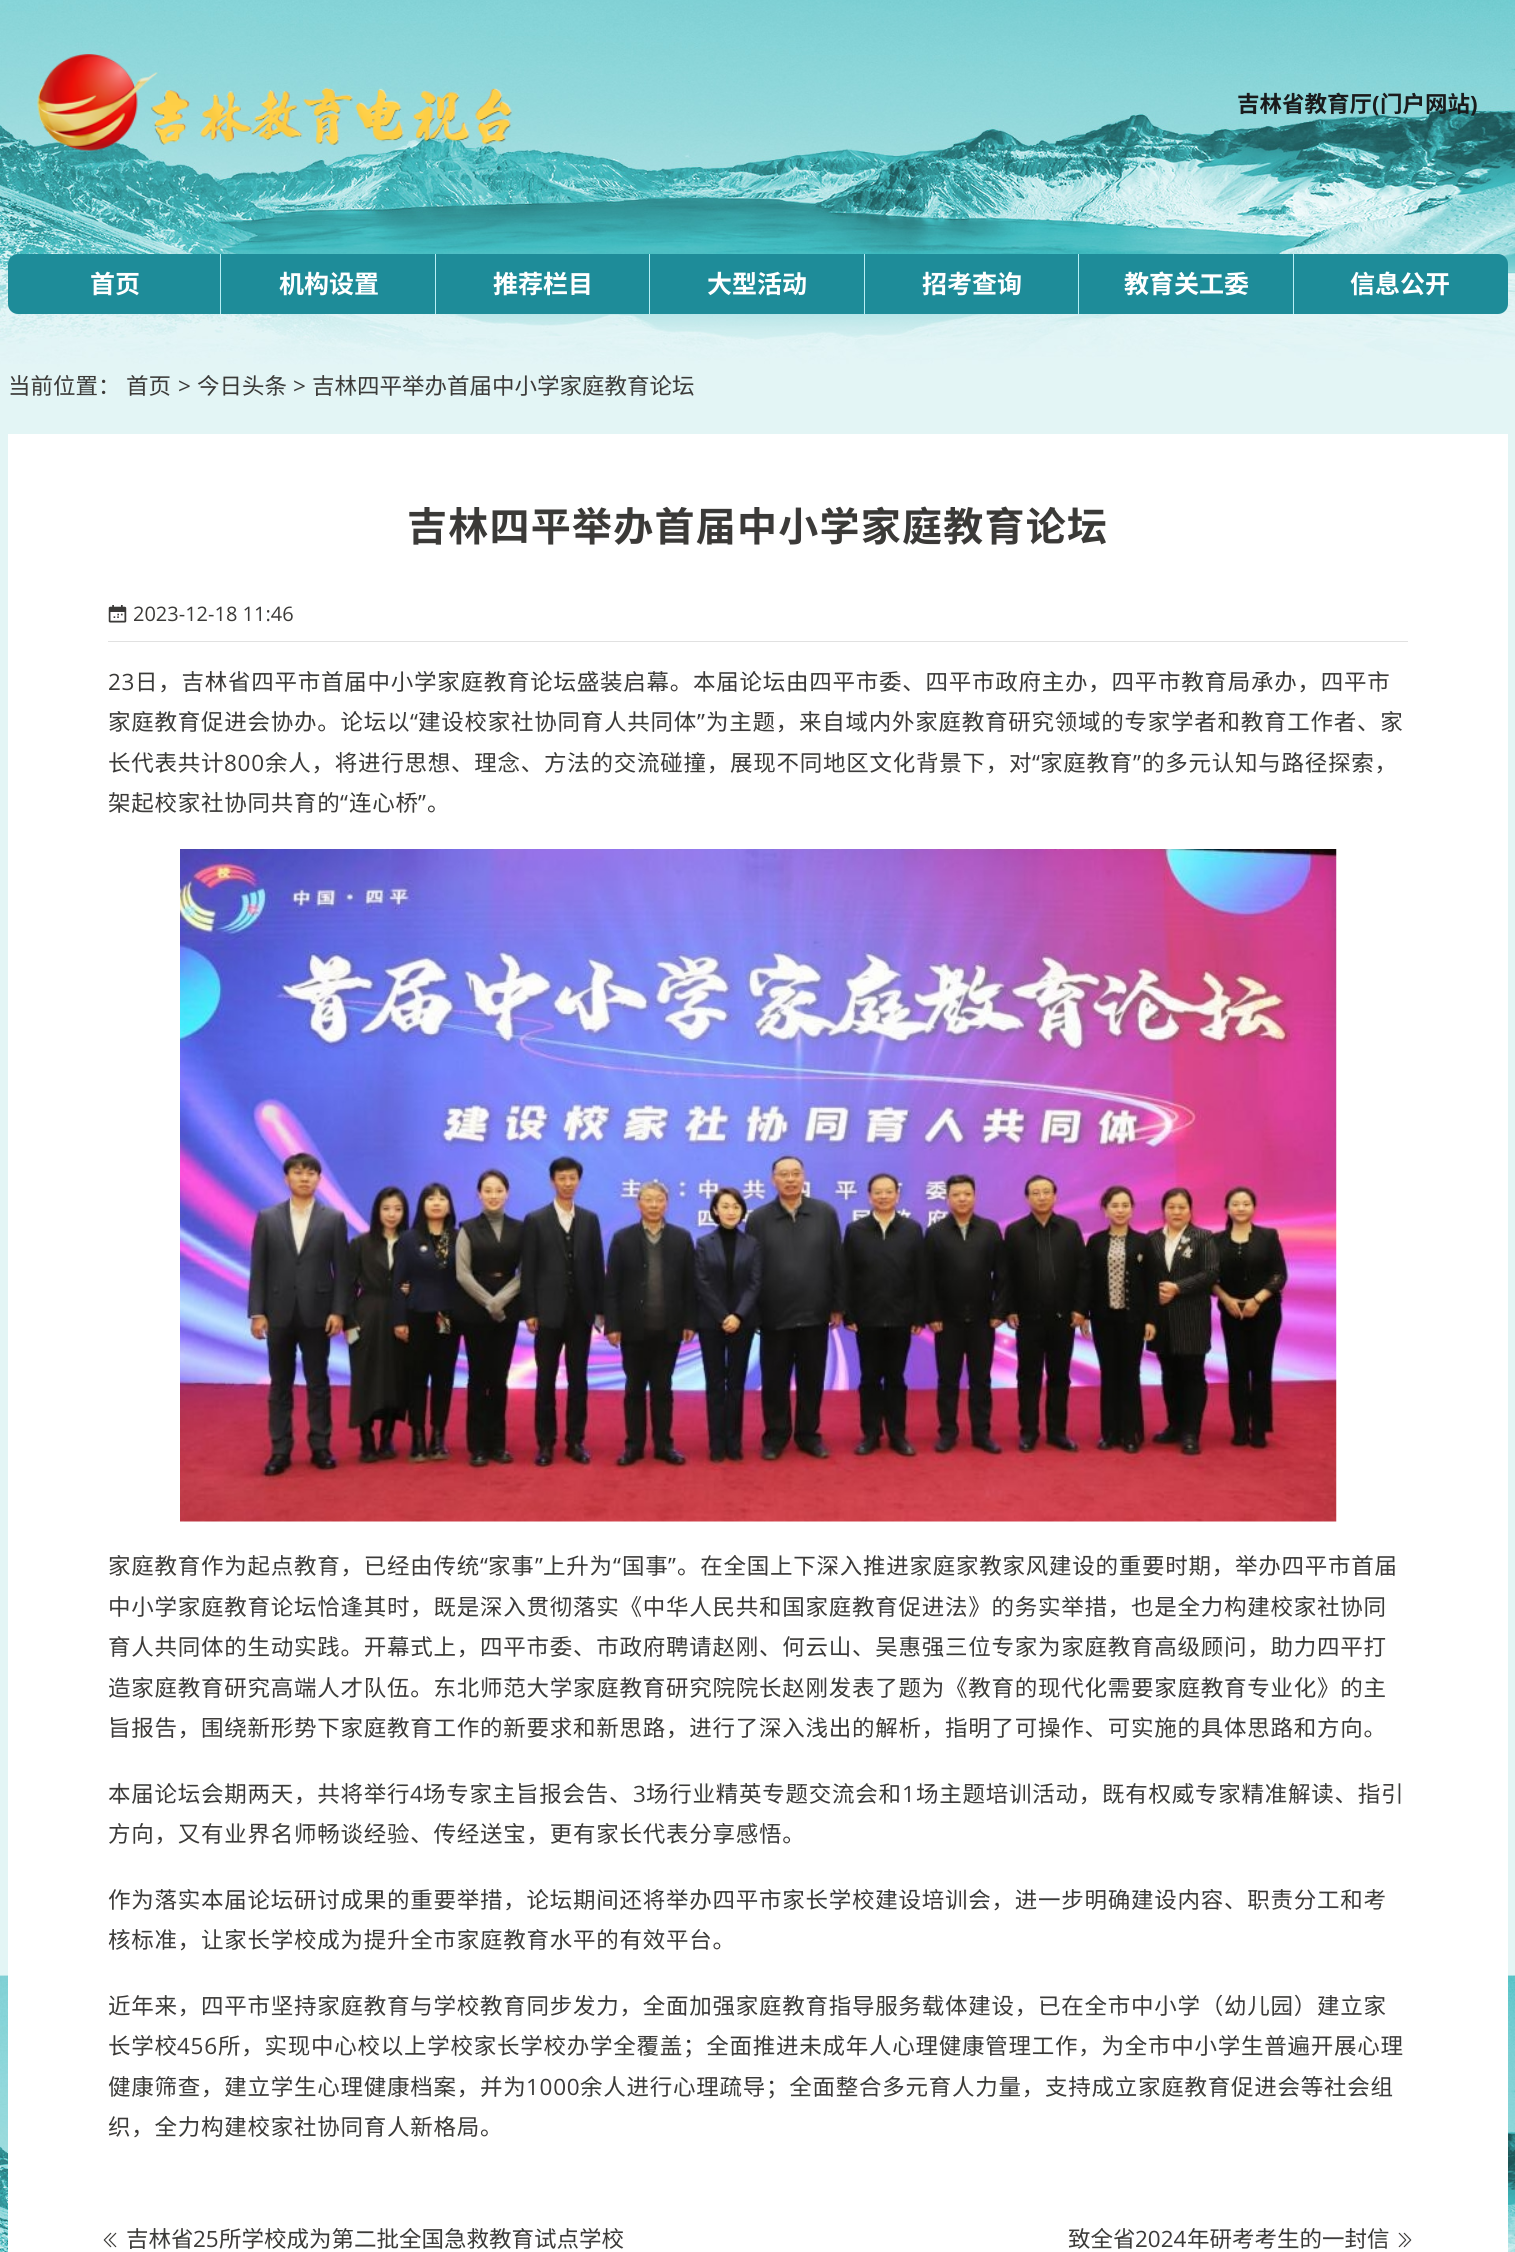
#include <cairo.h>
#include <math.h>
#include <stddef.h>


static void set_color(cairo_t *cr, unsigned color) {
    cairo_set_source_rgb(cr, (color >> 16) / 255.0, (color >> 8 & 255) / 255.0, (color & 255) / 255.0);
}

static void draw_text(cairo_t *cr, double x, double y, const char *s, const char *family, double size, int italic, int bold, unsigned color) {
    cairo_select_font_face(cr, family, italic ? CAIRO_FONT_SLANT_ITALIC : CAIRO_FONT_SLANT_NORMAL,
        bold ? CAIRO_FONT_WEIGHT_BOLD : CAIRO_FONT_WEIGHT_NORMAL);
    cairo_set_font_size(cr, size);
    set_color(cr, color);
    cairo_move_to(cr, x, y);
    cairo_show_text(cr, s);
}

static void draw_spaced(cairo_t *cr, double x, double y, const char *s, double letter, double word) {
    cairo_move_to(cr, x, y);
    while (*s) {
        char ch[5] = {0};
        int n = 0;
        do ch[n++] = *s++; while ((*s & 0xC0) == 0x80);
        cairo_show_text(cr, ch);
        cairo_rel_move_to(cr, letter + word * (*ch == ' '), 0);
    }
}

static void fill_rect(cairo_t *cr, double x, double y, double w, double h, unsigned color) {
    set_color(cr, color);
    cairo_rectangle(cr, x, y, w, h);
    cairo_fill(cr);
}

static void rounded_rect(cairo_t *cr, double x, double y, double w, double h, double r) {
    cairo_new_sub_path(cr);
    cairo_arc(cr, x + w - r, y + h - r, r, 0, M_PI / 2);
    cairo_arc(cr, x + r, y + h - r, r, M_PI / 2, M_PI);
    cairo_arc(cr, x + r, y + r, r, M_PI, 1.5 * M_PI);
    cairo_arc(cr, x + w - r, y + r, r, 1.5 * M_PI, 2 * M_PI);
    cairo_close_path(cr);
}

static void draw_image(cairo_t *cr, const char *path, double x, double y, double w, double h) {
    cairo_surface_t *image = cairo_image_surface_create_from_png(path);
    cairo_save(cr);
    cairo_set_source_surface(cr, image, x, y);
    cairo_rectangle(cr, x, y, w, h);
    cairo_fill(cr);
    cairo_restore(cr);
    cairo_surface_destroy(image);
}

int main(void) {
    cairo_surface_t *surface = cairo_image_surface_create(CAIRO_FORMAT_RGB24, 1515, 2252);
    cairo_t *cr = cairo_create(surface);
    cairo_font_options_t *options = cairo_font_options_create();
    cairo_font_options_set_hint_metrics(options, CAIRO_HINT_METRICS_OFF);
    cairo_font_options_set_hint_style(options, CAIRO_HINT_STYLE_NONE);
    cairo_set_font_options(cr, options);
    cairo_set_miter_limit(cr, 4);
    set_color(cr, 0xFFFFFF);
    cairo_paint(cr);
    draw_image(cr, "assets/img1.png", 0, 0, 1515, 2252);
    draw_image(cr, "assets/img2.png", 37, 54, 475, 97);
    draw_text(cr, 1237, 112, "吉林省教育厅", "Noto Sans CJK SC", 22.5, 0, 1, 0x1A1B1C);
    draw_text(cr, 1372, 112, "(", "Open Sans", 22.5, 0, 1, 0x1A1B1C);
    draw_text(cr, 1380, 112, "门户网站", "Noto Sans CJK SC", 22.5, 0, 1, 0x1A1B1C);
    draw_text(cr, 1470, 112, ")", "Open Sans", 22.5, 0, 1, 0x1A1B1C);
    set_color(cr, 0x1E8C99);
    rounded_rect(cr, 8, 254, 1500, 60, 10);
    cairo_fill(cr);
    draw_text(cr, 90, 293, "首页", "Noto Sans CJK SC", 25, 0, 1, 0xFFFFFF);
    fill_rect(cr, 220, 254, 1, 60, 0xB8EFF5);
    draw_text(cr, 279, 293, "机构设置", "Noto Sans CJK SC", 25, 0, 1, 0xFFFFFF);
    fill_rect(cr, 435, 254, 1, 60, 0xB8EFF5);
    draw_text(cr, 493, 293, "推荐栏目", "Noto Sans CJK SC", 25, 0, 1, 0xFFFFFF);
    fill_rect(cr, 649, 254, 1, 60, 0xB8EFF5);
    draw_text(cr, 707, 293, "大型活动", "Noto Sans CJK SC", 25, 0, 1, 0xFFFFFF);
    fill_rect(cr, 864, 254, 1, 60, 0xB8EFF5);
    draw_text(cr, 922, 293, "招考查询", "Noto Sans CJK SC", 25, 0, 1, 0xFFFFFF);
    fill_rect(cr, 1078, 254, 1, 60, 0xB8EFF5);
    draw_text(cr, 1124, 293, "教育关工委", "Noto Sans CJK SC", 25, 0, 1, 0xFFFFFF);
    fill_rect(cr, 1293, 254, 1, 60, 0xB8EFF5);
    draw_text(cr, 1350, 293, "信息公开", "Noto Sans CJK SC", 25, 0, 1, 0xFFFFFF);
    draw_text(cr, 8, 394, "当前位置：", "Noto Sans CJK SC", 22.5, 0, 0, 0x3B3A38);
    draw_text(cr, 126, 394, "首页", "Noto Sans CJK SC", 22.5, 0, 0, 0x3B3A38);
    draw_text(cr, 178, 394, ">", "Open Sans", 22.5, 0, 0, 0x3B3A38);
    draw_text(cr, 197, 394, "今日头条", "Noto Sans CJK SC", 22.5, 0, 0, 0x3B3A38);
    draw_text(cr, 293, 394, ">", "Open Sans", 22.5, 0, 0, 0x3B3A38);
    draw_text(cr, 312, 394, "吉林四平举办首届中小学家庭教育论坛", "Noto Sans CJK SC", 22.5, 0, 0, 0x3B3A38);
    fill_rect(cr, 8, 434, 1500, 1818, 0xFFFFFF);
    cairo_select_font_face(cr, "Noto Sans CJK SC", CAIRO_FONT_SLANT_NORMAL, CAIRO_FONT_WEIGHT_BOLD);
    cairo_set_font_size(cr, 40);
    set_color(cr, 0x3B3A38);
    draw_spaced(cr, 407, 541, "吉林四平举办首届中小学家庭教育论坛", 1.25, 0);
    fill_rect(cr, 108, 641, 1300, 1, 0xE1E1E1);
    draw_image(cr, "assets/img3.png", 108, 605, 19, 18);
    draw_text(cr, 133, 621, "2023-12-18 11:46", "Open Sans", 20, 0, 0, 0x3B3A38);
    cairo_set_font_size(cr, 22.5);
    draw_spaced(cr, 108, 690, "23", 0.75, 0);
    cairo_select_font_face(cr, "Noto Sans CJK SC", CAIRO_FONT_SLANT_NORMAL, CAIRO_FONT_WEIGHT_NORMAL);
    draw_spaced(cr, 135, 690, "日，吉林省四平市首届中小学家庭教育论坛盛装启幕。本届论坛由四平市委、四平市政府主办，四平市教育局承办，四平市", 0.75, 0);
    draw_spaced(cr, 108, 730, "家庭教育促进会协办。论坛以", 0.75, 0);
    cairo_select_font_face(cr, "Open Sans", CAIRO_FONT_SLANT_NORMAL, CAIRO_FONT_WEIGHT_NORMAL);
    draw_spaced(cr, 410, 730, "“", 0.75, 0);
    cairo_select_font_face(cr, "Noto Sans CJK SC", CAIRO_FONT_SLANT_NORMAL, CAIRO_FONT_WEIGHT_NORMAL);
    draw_spaced(cr, 418, 730, "建设校家社协同育人共同体", 0.75, 0);
    cairo_select_font_face(cr, "Open Sans", CAIRO_FONT_SLANT_NORMAL, CAIRO_FONT_WEIGHT_NORMAL);
    draw_spaced(cr, 697, 730, "”", 0.75, 0);
    cairo_select_font_face(cr, "Noto Sans CJK SC", CAIRO_FONT_SLANT_NORMAL, CAIRO_FONT_WEIGHT_NORMAL);
    draw_spaced(cr, 706, 730, "为主题，来自域内外家庭教育研究领域的专家学者和教育工作者、家", 0.75, 0);
    draw_spaced(cr, 108, 771, "长代表共计", 0.75, 0);
    cairo_select_font_face(cr, "Open Sans", CAIRO_FONT_SLANT_NORMAL, CAIRO_FONT_WEIGHT_NORMAL);
    draw_spaced(cr, 224, 771, "800", 0.75, 0);
    cairo_select_font_face(cr, "Noto Sans CJK SC", CAIRO_FONT_SLANT_NORMAL, CAIRO_FONT_WEIGHT_NORMAL);
    draw_spaced(cr, 265, 771, "余人，将进行思想、理念、方法的交流碰撞，展现不同地区文化背景下，对", 0.75, 0);
    cairo_select_font_face(cr, "Open Sans", CAIRO_FONT_SLANT_NORMAL, CAIRO_FONT_WEIGHT_NORMAL);
    draw_spaced(cr, 1032, 771, "“", 0.75, 0);
    cairo_select_font_face(cr, "Noto Sans CJK SC", CAIRO_FONT_SLANT_NORMAL, CAIRO_FONT_WEIGHT_NORMAL);
    draw_spaced(cr, 1040, 771, "家庭教育", 0.75, 0);
    cairo_select_font_face(cr, "Open Sans", CAIRO_FONT_SLANT_NORMAL, CAIRO_FONT_WEIGHT_NORMAL);
    draw_spaced(cr, 1133, 771, "”", 0.75, 0);
    cairo_select_font_face(cr, "Noto Sans CJK SC", CAIRO_FONT_SLANT_NORMAL, CAIRO_FONT_WEIGHT_NORMAL);
    draw_spaced(cr, 1142, 771, "的多元认知与路径探索，", 0.75, 0);
    draw_spaced(cr, 108, 811, "架起校家社协同共育的", 0.75, 0);
    cairo_select_font_face(cr, "Open Sans", CAIRO_FONT_SLANT_NORMAL, CAIRO_FONT_WEIGHT_NORMAL);
    draw_spaced(cr, 340, 811, "“", 0.75, 0);
    cairo_select_font_face(cr, "Noto Sans CJK SC", CAIRO_FONT_SLANT_NORMAL, CAIRO_FONT_WEIGHT_NORMAL);
    draw_spaced(cr, 349, 811, "连心桥", 0.75, 0);
    cairo_select_font_face(cr, "Open Sans", CAIRO_FONT_SLANT_NORMAL, CAIRO_FONT_WEIGHT_NORMAL);
    draw_spaced(cr, 418, 811, "”", 0.75, 0);
    cairo_select_font_face(cr, "Noto Sans CJK SC", CAIRO_FONT_SLANT_NORMAL, CAIRO_FONT_WEIGHT_NORMAL);
    draw_spaced(cr, 427, 811, "。", 0.75, 0);
    draw_image(cr, "assets/img4.png", 180, 849, 1157, 673);
    draw_spaced(cr, 108, 1574, "家庭教育作为起点教育，已经由传统", 0.75, 0);
    cairo_select_font_face(cr, "Open Sans", CAIRO_FONT_SLANT_NORMAL, CAIRO_FONT_WEIGHT_NORMAL);
    draw_spaced(cr, 480, 1574, "“", 0.75, 0);
    cairo_select_font_face(cr, "Noto Sans CJK SC", CAIRO_FONT_SLANT_NORMAL, CAIRO_FONT_WEIGHT_NORMAL);
    draw_spaced(cr, 488, 1574, "家事", 0.75, 0);
    cairo_select_font_face(cr, "Open Sans", CAIRO_FONT_SLANT_NORMAL, CAIRO_FONT_WEIGHT_NORMAL);
    draw_spaced(cr, 535, 1574, "”", 0.75, 0);
    cairo_select_font_face(cr, "Noto Sans CJK SC", CAIRO_FONT_SLANT_NORMAL, CAIRO_FONT_WEIGHT_NORMAL);
    draw_spaced(cr, 543, 1574, "上升为", 0.75, 0);
    cairo_select_font_face(cr, "Open Sans", CAIRO_FONT_SLANT_NORMAL, CAIRO_FONT_WEIGHT_NORMAL);
    draw_spaced(cr, 613, 1574, "“", 0.75, 0);
    cairo_select_font_face(cr, "Noto Sans CJK SC", CAIRO_FONT_SLANT_NORMAL, CAIRO_FONT_WEIGHT_NORMAL);
    draw_spaced(cr, 622, 1574, "国事", 0.75, 0);
    cairo_select_font_face(cr, "Open Sans", CAIRO_FONT_SLANT_NORMAL, CAIRO_FONT_WEIGHT_NORMAL);
    draw_spaced(cr, 668, 1574, "”", 0.75, 0);
    cairo_select_font_face(cr, "Noto Sans CJK SC", CAIRO_FONT_SLANT_NORMAL, CAIRO_FONT_WEIGHT_NORMAL);
    draw_spaced(cr, 677, 1574, "。在全国上下深入推进家庭家教家风建设的重要时期，举办四平市首届", 0.75, 0);
    draw_spaced(cr, 108, 1615, "中小学家庭教育论坛恰逢其时，既是深入贯彻落实《中华人民共和国家庭教育促进法》的务实举措，也是全力构建校家社协同", 0.75, 0);
    draw_spaced(cr, 108, 1655, "育人共同体的生动实践。开幕式上，四平市委、市政府聘请赵刚、何云山、吴惠强三位专家为家庭教育高级顾问，助力四平打", 0.75, 0);
    draw_spaced(cr, 108, 1696, "造家庭教育研究高端人才队伍。东北师范大学家庭教育研究院院长赵刚发表了题为《教育的现代化需要家庭教育专业化》的主", 0.75, 0);
    draw_spaced(cr, 108, 1736, "旨报告，围绕新形势下家庭教育工作的新要求和新思路，进行了深入浅出的解析，指明了可操作、可实施的具体思路和方向。", 0.75, 0);
    draw_spaced(cr, 108, 1802, "本届论坛会期两天，共将举行", 0.75, 0);
    cairo_select_font_face(cr, "Open Sans", CAIRO_FONT_SLANT_NORMAL, CAIRO_FONT_WEIGHT_NORMAL);
    draw_spaced(cr, 410, 1802, "4", 0.75, 0);
    cairo_select_font_face(cr, "Noto Sans CJK SC", CAIRO_FONT_SLANT_NORMAL, CAIRO_FONT_WEIGHT_NORMAL);
    draw_spaced(cr, 423, 1802, "场专家主旨报会告、", 0.75, 0);
    cairo_select_font_face(cr, "Open Sans", CAIRO_FONT_SLANT_NORMAL, CAIRO_FONT_WEIGHT_NORMAL);
    draw_spaced(cr, 633, 1802, "3", 0.75, 0);
    cairo_select_font_face(cr, "Noto Sans CJK SC", CAIRO_FONT_SLANT_NORMAL, CAIRO_FONT_WEIGHT_NORMAL);
    draw_spaced(cr, 646, 1802, "场行业精英专题交流会和", 0.75, 0);
    cairo_select_font_face(cr, "Open Sans", CAIRO_FONT_SLANT_NORMAL, CAIRO_FONT_WEIGHT_NORMAL);
    draw_spaced(cr, 902, 1802, "1", 0.75, 0);
    cairo_select_font_face(cr, "Noto Sans CJK SC", CAIRO_FONT_SLANT_NORMAL, CAIRO_FONT_WEIGHT_NORMAL);
    draw_spaced(cr, 916, 1802, "场主题培训活动，既有权威专家精准解读、指引", 0.75, 0);
    draw_spaced(cr, 108, 1842, "方向，又有业界名师畅谈经验、传经送宝，更有家长代表分享感悟。", 0.75, 0);
    draw_spaced(cr, 108, 1908, "作为落实本届论坛研讨成果的重要举措，论坛期间还将举办四平市家长学校建设培训会，进一步明确建设内容、职责分工和考", 0.75, 0);
    draw_spaced(cr, 108, 1948, "核标准，让家长学校成为提升全市家庭教育水平的有效平台。", 0.75, 0);
    draw_spaced(cr, 108, 2014, "近年来，四平市坚持家庭教育与学校教育同步发力，全面加强家庭教育指导服务载体建设，已在全市中小学（幼儿园）建立家", 0.75, 0);
    draw_spaced(cr, 108, 2054, "长学校", 0.75, 0);
    cairo_select_font_face(cr, "Open Sans", CAIRO_FONT_SLANT_NORMAL, CAIRO_FONT_WEIGHT_NORMAL);
    draw_spaced(cr, 177, 2054, "456", 0.75, 0);
    cairo_select_font_face(cr, "Noto Sans CJK SC", CAIRO_FONT_SLANT_NORMAL, CAIRO_FONT_WEIGHT_NORMAL);
    draw_spaced(cr, 218, 2054, "所，实现中心校以上学校家长学校办学全覆盖；全面推进未成年人心理健康管理工作，为全市中小学生普遍开展心理", 0.75, 0);
    draw_spaced(cr, 108, 2095, "健康筛查，建立学生心理健康档案，并为", 0.75, 0);
    cairo_select_font_face(cr, "Open Sans", CAIRO_FONT_SLANT_NORMAL, CAIRO_FONT_WEIGHT_NORMAL);
    draw_spaced(cr, 526, 2095, "1000", 0.75, 0);
    cairo_select_font_face(cr, "Noto Sans CJK SC", CAIRO_FONT_SLANT_NORMAL, CAIRO_FONT_WEIGHT_NORMAL);
    draw_spaced(cr, 580, 2095, "余人进行心理疏导；全面整合多元育人力量，支持成立家庭教育促进会等社会组", 0.75, 0);
    draw_spaced(cr, 108, 2135, "织，全力构建校家社协同育人新格局。", 0.75, 0);
    draw_image(cr, "assets/img5.png", 103, 2232, 14, 16);
    draw_text(cr, 126, 2247, "吉林省", "Noto Sans CJK SC", 22.5, 0, 0, 0x3B3A38);
    draw_text(cr, 193, 2247, "25", "Open Sans", 22.5, 0, 0, 0x3B3A38);
    draw_text(cr, 219, 2247, "所学校成为第二批全国急救教育试点学校", "Noto Sans CJK SC", 22.5, 0, 0, 0x3B3A38);
    draw_text(cr, 1068, 2247, "致全省", "Noto Sans CJK SC", 22.5, 0, 0, 0x3B3A38);
    draw_text(cr, 1135, 2247, "2024", "Open Sans", 22.5, 0, 0, 0x3B3A38);
    draw_text(cr, 1187, 2247, "年研考考生的一封信", "Noto Sans CJK SC", 22.5, 0, 0, 0x3B3A38);
    draw_image(cr, "assets/img6.png", 1398, 2232, 14, 16);
    cairo_surface_write_to_png(surface, "output.png");
    cairo_font_options_destroy(options);
    cairo_destroy(cr);
    cairo_surface_destroy(surface);
    return 0;
}
